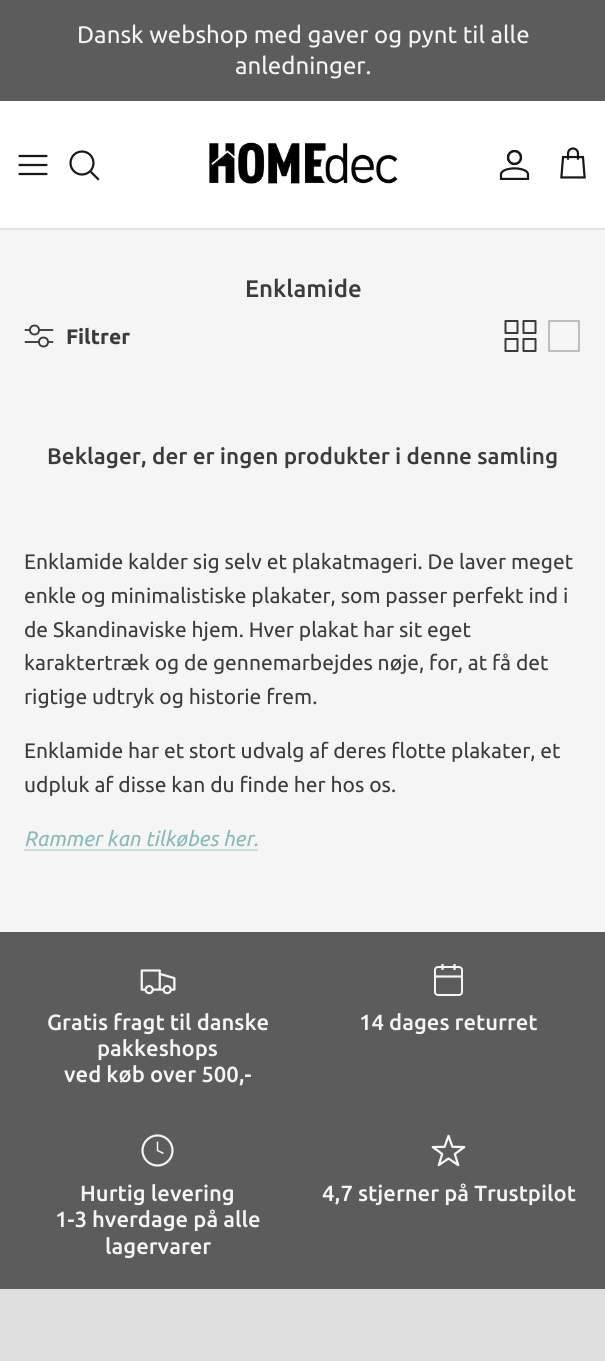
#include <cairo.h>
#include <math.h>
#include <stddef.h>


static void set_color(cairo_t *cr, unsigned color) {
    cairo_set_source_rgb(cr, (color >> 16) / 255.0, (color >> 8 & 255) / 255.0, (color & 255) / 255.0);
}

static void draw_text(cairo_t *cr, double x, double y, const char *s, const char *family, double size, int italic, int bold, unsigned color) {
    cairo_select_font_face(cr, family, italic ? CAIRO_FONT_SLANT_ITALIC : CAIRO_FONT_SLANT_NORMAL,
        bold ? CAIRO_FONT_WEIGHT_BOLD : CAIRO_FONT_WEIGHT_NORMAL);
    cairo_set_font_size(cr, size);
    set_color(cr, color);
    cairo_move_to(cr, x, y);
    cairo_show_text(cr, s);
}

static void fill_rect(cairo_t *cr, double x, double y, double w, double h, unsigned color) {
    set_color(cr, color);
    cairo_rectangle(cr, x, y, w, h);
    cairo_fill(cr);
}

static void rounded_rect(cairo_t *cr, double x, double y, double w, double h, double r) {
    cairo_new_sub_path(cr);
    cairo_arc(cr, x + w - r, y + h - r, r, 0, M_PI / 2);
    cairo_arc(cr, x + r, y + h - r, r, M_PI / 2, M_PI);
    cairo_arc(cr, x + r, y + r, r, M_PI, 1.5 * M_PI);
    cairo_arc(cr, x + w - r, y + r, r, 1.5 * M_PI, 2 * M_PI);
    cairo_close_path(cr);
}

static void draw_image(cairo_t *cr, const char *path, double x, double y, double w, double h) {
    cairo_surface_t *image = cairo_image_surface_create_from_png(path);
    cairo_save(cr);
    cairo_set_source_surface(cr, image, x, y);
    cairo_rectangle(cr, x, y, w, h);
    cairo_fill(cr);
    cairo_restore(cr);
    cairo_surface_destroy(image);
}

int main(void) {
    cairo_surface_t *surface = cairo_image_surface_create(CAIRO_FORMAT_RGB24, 605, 1361);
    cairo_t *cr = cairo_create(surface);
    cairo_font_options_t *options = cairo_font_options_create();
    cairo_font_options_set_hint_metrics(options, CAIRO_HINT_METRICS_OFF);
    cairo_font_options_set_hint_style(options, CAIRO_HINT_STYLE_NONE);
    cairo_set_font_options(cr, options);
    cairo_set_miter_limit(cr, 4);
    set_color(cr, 0xF5F5F5);
    cairo_paint(cr);
    fill_rect(cr, 0, 0, 605, 101, 0x5C5C5C);
    draw_text(cr, 77, 43, "Dansk webshop med gaver og pynt til alle", "Ubuntu", 24, 0, 0, 0xF5F5F5);
    draw_text(cr, 235, 74, "anledninger.", "Ubuntu", 24, 0, 0, 0xF5F5F5);
    fill_rect(cr, 0, 101, 605, 127, 0xFFFFFF);
    fill_rect(cr, 0, 228, 605, 2, 0xDFE3E8);
    cairo_new_path(cr);
    cairo_move_to(cr, 19.5, 165);
    cairo_line_to(cr, 46.5, 165);
    cairo_move_to(cr, 19.5, 156);
    cairo_line_to(cr, 46.5, 156);
    cairo_move_to(cr, 19.5, 174);
    cairo_line_to(cr, 46.5, 174);
    set_color(cr, 0x171717);
    cairo_set_line_width(cr, 2.2);
    cairo_set_line_cap(cr, CAIRO_LINE_CAP_ROUND);
    cairo_set_line_join(cr, CAIRO_LINE_JOIN_ROUND);
    cairo_stroke(cr);
    cairo_arc(cr, 82, 163, 11.5, 0, 2 * M_PI);
    cairo_set_line_cap(cr, CAIRO_LINE_CAP_BUTT);
    cairo_set_line_join(cr, CAIRO_LINE_JOIN_MITER);
    cairo_stroke(cr);
    cairo_new_path(cr);
    cairo_move_to(cr, 91.5, 172.5);
    cairo_line_to(cr, 98, 179);
    cairo_set_line_cap(cr, CAIRO_LINE_CAP_SQUARE);
    cairo_stroke(cr);
    draw_image(cr, "assets/img1.png", 209, 142, 189, 42);
    draw_image(cr, "assets/img2.png", 499, 149, 31, 31);
    draw_image(cr, "assets/img3.png", 560, 147, 26, 32);
    draw_text(cr, 245, 297, "Enklamide", "Ubuntu Medium", 24, 0, 0, 0x3B3B3B);
    cairo_new_path(cr);
    cairo_move_to(cr, 25.5, 330);
    cairo_line_to(cr, 52.5, 330);
    cairo_move_to(cr, 25.5, 342);
    cairo_line_to(cr, 52.5, 342);
    cairo_set_line_width(cr, 1.9);
    cairo_set_line_cap(cr, CAIRO_LINE_CAP_ROUND);
    cairo_set_line_join(cr, CAIRO_LINE_JOIN_ROUND);
    cairo_stroke(cr);
    set_color(cr, 0xF5F5F5);
    cairo_arc(cr, 34.5, 330, 4.5, 0, 2 * M_PI);
    cairo_fill_preserve(cr);
    set_color(cr, 0x3B3B3B);
    cairo_set_line_cap(cr, CAIRO_LINE_CAP_BUTT);
    cairo_set_line_join(cr, CAIRO_LINE_JOIN_MITER);
    cairo_stroke(cr);
    set_color(cr, 0xF5F5F5);
    cairo_arc(cr, 43.5, 342, 4.5, 0, 2 * M_PI);
    cairo_fill_preserve(cr);
    set_color(cr, 0x3B3B3B);
    cairo_stroke(cr);
    draw_text(cr, 66, 344, "Filtrer", "Ubuntu", 21, 0, 1, 0x3B3B3B);
    draw_image(cr, "assets/img4.png", 504, 320, 33, 32);
    cairo_new_path(cr);
    cairo_move_to(cr, 549, 321);
    cairo_line_to(cr, 579, 321);
    cairo_line_to(cr, 579, 351);
    cairo_line_to(cr, 549, 351);
    cairo_line_to(cr, 549, 321);
    set_color(cr, 0xBDBDBD);
    cairo_set_line_width(cr, 2);
    cairo_set_line_cap(cr, CAIRO_LINE_CAP_ROUND);
    cairo_set_line_join(cr, CAIRO_LINE_JOIN_ROUND);
    cairo_stroke(cr);
    draw_text(cr, 47, 464, "Beklager, der er ingen produkter i denne samling", "Ubuntu Medium", 22.5, 0, 0, 0x3B3B3B);
    draw_text(cr, 24, 569, "Enklamide kalder sig selv et plakatmageri. De laver meget", "Ubuntu", 21, 0, 0, 0x3B3B3B);
    draw_text(cr, 24, 603, "enkle og minimalistiske plakater, som passer perfekt ind i", "Ubuntu", 21, 0, 0, 0x3B3B3B);
    draw_text(cr, 24, 637, "de Skandinaviske hjem. Hver plakat har sit eget", "Ubuntu", 21, 0, 0, 0x3B3B3B);
    draw_text(cr, 24, 670, "karaktertræk og de gennemarbejdes nøje, for, at få det", "Ubuntu", 21, 0, 0, 0x3B3B3B);
    draw_text(cr, 24, 704, "rigtige udtryk og historie frem.", "Ubuntu", 21, 0, 0, 0x3B3B3B);
    draw_text(cr, 24, 758, "Enklamide har et stort udvalg af deres flotte plakater, et", "Ubuntu", 21, 0, 0, 0x3B3B3B);
    draw_text(cr, 24, 792, "udpluk af disse kan du finde her hos os.", "Ubuntu", 21, 0, 0, 0x3B3B3B);
    draw_text(cr, 24, 846, "Rammer kan tilkøbes her.", "Ubuntu", 21, 1, 0, 0x87BABA);
    fill_rect(cr, 24, 849, 234, 2, 0xC9DDDD);
    fill_rect(cr, 0, 1289, 605, 72, 0xDFDEDE);
    fill_rect(cr, 0, 932, 605, 357, 0x5C5C5C);
    draw_image(cr, "assets/img5.png", 140, 969, 36, 26);
    draw_text(cr, 47, 1030, "Gratis fragt til danske", "Ubuntu Medium", 22, 0, 0, 0xF5F5F5);
    draw_text(cr, 97, 1056, "pakkeshops", "Ubuntu Medium", 22, 0, 0, 0xF5F5F5);
    draw_text(cr, 64, 1082, "ved køb over 500,-", "Ubuntu Medium", 22, 0, 0, 0xF5F5F5);
    rounded_rect(cr, 435, 967, 27, 28, 3);
    cairo_set_line_cap(cr, CAIRO_LINE_CAP_BUTT);
    cairo_set_line_join(cr, CAIRO_LINE_JOIN_MITER);
    cairo_stroke(cr);
    cairo_new_path(cr);
    cairo_move_to(cr, 454.5, 964);
    cairo_line_to(cr, 454.5, 970);
    cairo_move_to(cr, 442.5, 964);
    cairo_line_to(cr, 442.5, 970);
    cairo_move_to(cr, 435, 976.5);
    cairo_line_to(cr, 462, 976.5);
    cairo_set_line_width(cr, 2.2);
    cairo_stroke(cr);
    draw_text(cr, 359, 1030, "14 dages returret", "Ubuntu Medium", 22, 0, 0, 0xF5F5F5);
    cairo_new_path(cr);
    cairo_arc(cr, 157.5, 1150.5, 15, 0, 2 * M_PI);
    cairo_stroke(cr);
    cairo_new_path(cr);
    cairo_move_to(cr, 157.5, 1141.5);
    cairo_line_to(cr, 157.5, 1150.5);
    cairo_line_to(cr, 163.5, 1153.5);
    cairo_set_line_width(cr, 1.5);
    cairo_stroke(cr);
    draw_text(cr, 80, 1201, "Hurtig levering", "Ubuntu Medium", 22, 0, 0, 0xF5F5F5);
    draw_text(cr, 55, 1227, "1-3 hverdage på alle", "Ubuntu Medium", 22, 0, 0, 0xF5F5F5);
    draw_text(cr, 105, 1254, "lagervarer", "Ubuntu Medium", 22, 0, 0, 0xF5F5F5);
    draw_image(cr, "assets/img6.png", 431, 1134, 35, 33);
    draw_text(cr, 322, 1201, "4,7 stjerner på Trustpilot", "Ubuntu Medium", 22, 0, 0, 0xF5F5F5);
    cairo_surface_write_to_png(surface, "output.png");
    cairo_font_options_destroy(options);
    cairo_destroy(cr);
    cairo_surface_destroy(surface);
    return 0;
}
